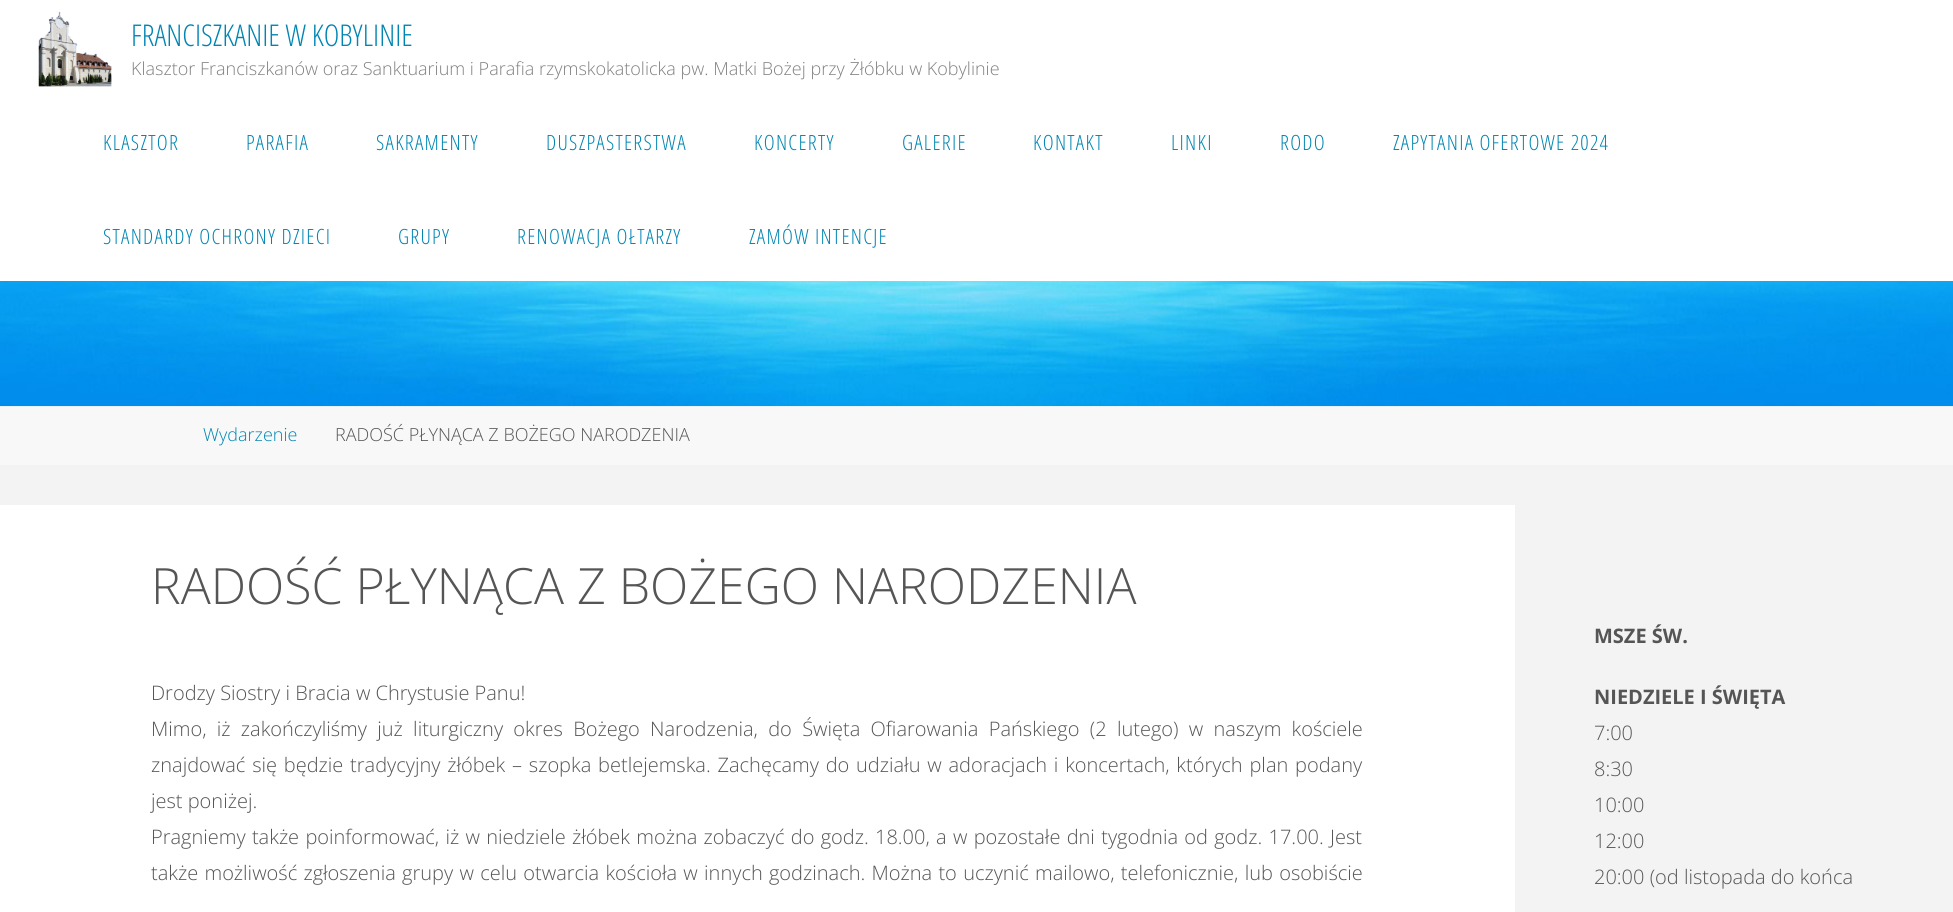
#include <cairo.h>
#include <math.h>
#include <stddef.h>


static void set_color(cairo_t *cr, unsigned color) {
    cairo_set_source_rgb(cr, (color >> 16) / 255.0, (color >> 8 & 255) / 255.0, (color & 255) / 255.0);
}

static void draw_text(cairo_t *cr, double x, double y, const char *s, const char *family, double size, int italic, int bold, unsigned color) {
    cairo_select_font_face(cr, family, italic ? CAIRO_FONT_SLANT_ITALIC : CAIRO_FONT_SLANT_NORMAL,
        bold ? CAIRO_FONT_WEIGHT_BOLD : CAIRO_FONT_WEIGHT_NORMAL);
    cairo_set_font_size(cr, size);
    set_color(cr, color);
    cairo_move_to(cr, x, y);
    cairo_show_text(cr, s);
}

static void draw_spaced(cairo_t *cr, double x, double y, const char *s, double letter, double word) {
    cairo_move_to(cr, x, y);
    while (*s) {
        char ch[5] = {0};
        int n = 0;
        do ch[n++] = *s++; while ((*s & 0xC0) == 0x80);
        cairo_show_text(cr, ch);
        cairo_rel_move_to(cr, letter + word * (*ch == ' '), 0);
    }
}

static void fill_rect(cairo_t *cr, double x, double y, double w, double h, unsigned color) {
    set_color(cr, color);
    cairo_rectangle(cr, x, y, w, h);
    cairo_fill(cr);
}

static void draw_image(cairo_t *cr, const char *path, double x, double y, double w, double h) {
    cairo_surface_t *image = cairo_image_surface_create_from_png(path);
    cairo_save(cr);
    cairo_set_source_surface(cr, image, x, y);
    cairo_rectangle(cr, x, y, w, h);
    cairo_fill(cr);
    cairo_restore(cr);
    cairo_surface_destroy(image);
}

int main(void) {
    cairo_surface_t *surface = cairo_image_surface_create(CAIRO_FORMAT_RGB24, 1953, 912);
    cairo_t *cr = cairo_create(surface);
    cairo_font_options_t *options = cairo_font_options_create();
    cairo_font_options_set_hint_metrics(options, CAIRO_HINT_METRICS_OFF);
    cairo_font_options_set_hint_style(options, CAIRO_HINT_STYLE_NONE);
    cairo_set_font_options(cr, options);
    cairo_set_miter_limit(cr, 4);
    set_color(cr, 0xF3F3F3);
    cairo_paint(cr);
    fill_rect(cr, 0, 0, 1953, 281, 0xFFFFFF);
    draw_image(cr, "assets/img1.png", 38, 11, 74, 76);
    draw_text(cr, 131, 46, "FRANCISZKANIE W KOBYLINIE", "Open Sans Condensed Light", 30, 0, 0, 0x0085B2);
    draw_text(cr, 131, 75, "Klasztor Franciszkanów oraz Sanktuarium i Parafia rzymskokatolicka pw. Matki Bożej przy Żłóbku w Kobylinie", "Open Sans Light", 18, 0, 0, 0x808080);
    cairo_select_font_face(cr, "Open Sans Condensed Light", CAIRO_FONT_SLANT_NORMAL, CAIRO_FONT_WEIGHT_NORMAL);
    cairo_set_font_size(cr, 21);
    set_color(cr, 0x0085B2);
    draw_spaced(cr, 103, 150, "KLASZTOR", 1.25, 0);
    draw_spaced(cr, 246, 150, "PARAFIA", 1.25, 0);
    draw_spaced(cr, 376, 150, "SAKRAMENTY", 1.25, 0);
    draw_spaced(cr, 546, 150, "DUSZPASTERSTWA", 1.25, 0);
    draw_spaced(cr, 754, 150, "KONCERTY", 1.25, 0);
    draw_spaced(cr, 902, 150, "GALERIE", 1.25, 0);
    draw_spaced(cr, 1033, 150, "KONTAKT", 1.25, 0);
    draw_spaced(cr, 1171, 150, "LINKI", 1.25, 0);
    draw_spaced(cr, 1280, 150, "RODO", 1.25, 0);
    draw_spaced(cr, 1393, 150, "ZAPYTANIA OFERTOWE 2024", 1.25, 0);
    draw_spaced(cr, 103, 244, "STANDARDY OCHRONY DZIECI", 1.25, 0);
    draw_spaced(cr, 398, 244, "GRUPY", 1.25, 0);
    draw_spaced(cr, 517, 244, "RENOWACJA OŁTARZY", 1.25, 0);
    draw_spaced(cr, 749, 244, "ZAMÓW INTENCJE", 1.25, 0);
    fill_rect(cr, 0, 406, 1953, 59, 0xF8F8F8);
    draw_image(cr, "assets/img2.png", 0, 281, 1953, 126);
    draw_text(cr, 203, 441, "Wydarzenie", "Open Sans Light", 18, 0, 0, 0x0085B2);
    draw_text(cr, 335, 441, "RADOŚĆ PŁYNĄCA Z BOŻEGO NARODZENIA", "Open Sans Light", 18, 0, 0, 0x555555);
    fill_rect(cr, 0, 505, 1515, 407, 0xFFFFFF);
    draw_text(cr, 151, 604, "RADOŚĆ PŁYNĄCA Z BOŻEGO NARODZENIA", "Open Sans Light", 50, 0, 0, 0x555555);
    draw_text(cr, 151, 700, "Drodzy Siostry i Bracia w Chrystusie Panu!", "Open Sans Light", 20, 0, 0, 0x555555);
    draw_spaced(cr, 151, 736, "Mimo, iż zakończyliśmy już liturgiczny okres Bożego Narodzenia, do Święta Ofiarowania Pańskiego (2 lutego) w naszym kościele", 0, 5.1);
    draw_spaced(cr, 151, 772, "znajdować się będzie tradycyjny żłóbek – szopka betlejemska. Zachęcamy do udziału w adoracjach i koncertach, których plan podany", 0, 1.6);
    draw_text(cr, 151, 808, "jest poniżej.", "Open Sans Light", 20, 0, 0, 0x555555);
    draw_spaced(cr, 151, 844, "Pragniemy także poinformować, iż w niedziele żłóbek można zobaczyć do godz. 18.00, a w pozostałe dni tygodnia od godz. 17.00. Jest", 0, 1.1);
    draw_spaced(cr, 151, 880, "także możliwość zgłoszenia grupy w celu otwarcia kościoła w innych godzinach. Można to uczynić mailowo, telefonicznie, lub osobiście", 0, 1.1);
    draw_text(cr, 1594, 643, "MSZE ŚW.", "Open Sans", 20, 0, 1, 0x555555);
    draw_text(cr, 1594, 704, "NIEDZIELE I ŚWIĘTA", "Open Sans", 20, 0, 1, 0x555555);
    draw_text(cr, 1594, 740, "7:00", "Open Sans Light", 20, 0, 0, 0x555555);
    draw_text(cr, 1594, 776, "8:30", "Open Sans Light", 20, 0, 0, 0x555555);
    draw_text(cr, 1594, 812, "10:00", "Open Sans Light", 20, 0, 0, 0x555555);
    draw_text(cr, 1594, 848, "12:00", "Open Sans Light", 20, 0, 0, 0x555555);
    draw_text(cr, 1594, 884, "20:00 (od listopada do końca", "Open Sans Light", 20, 0, 0, 0x555555);
    cairo_surface_write_to_png(surface, "output.png");
    cairo_font_options_destroy(options);
    cairo_destroy(cr);
    cairo_surface_destroy(surface);
    return 0;
}
